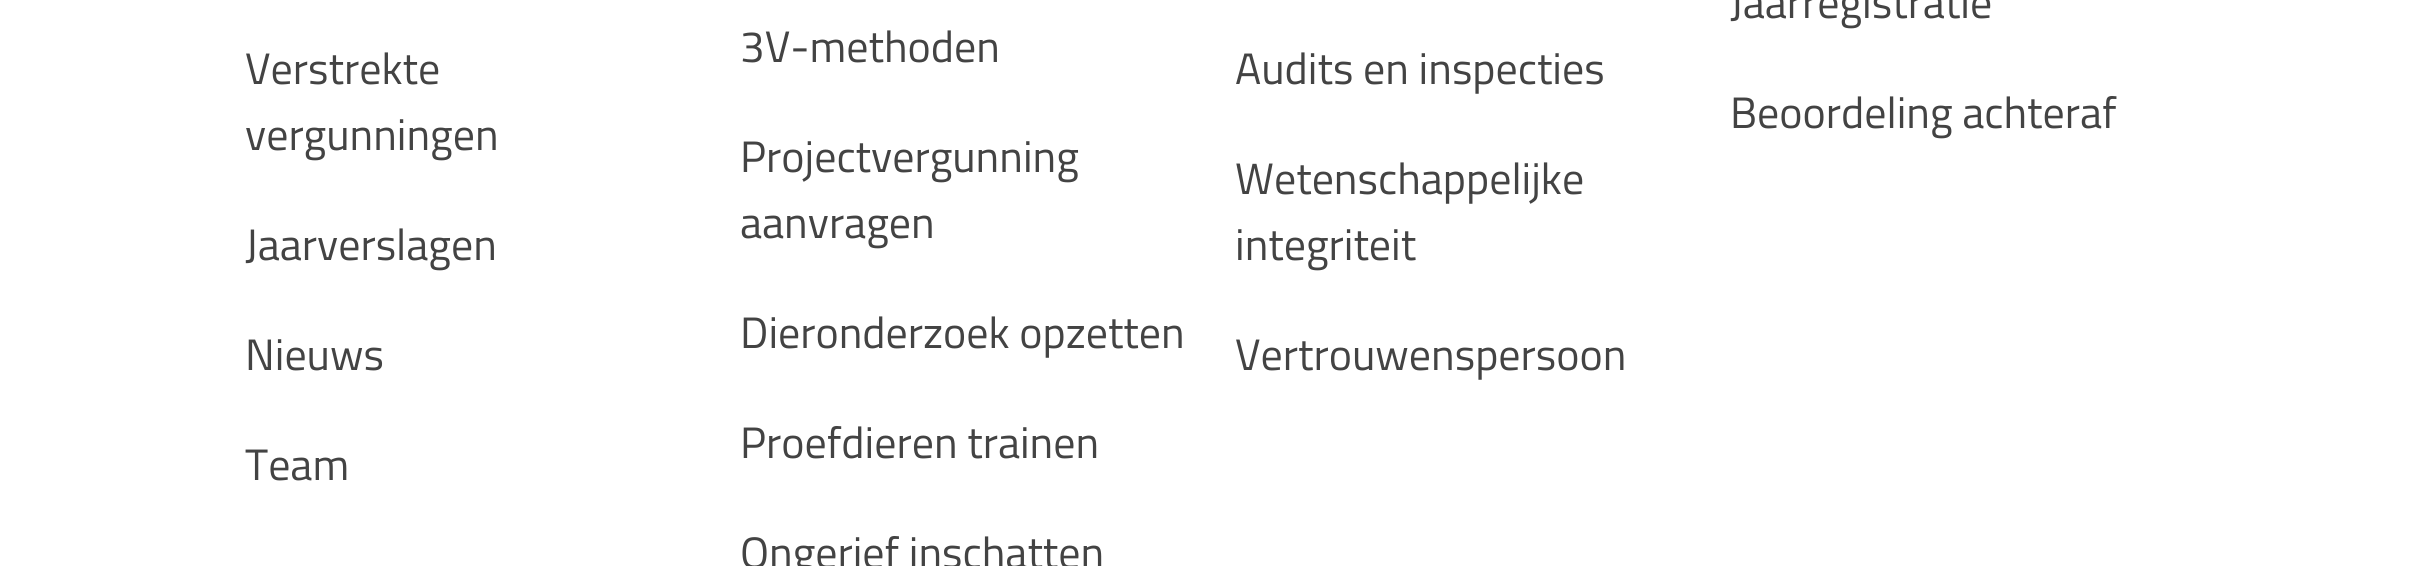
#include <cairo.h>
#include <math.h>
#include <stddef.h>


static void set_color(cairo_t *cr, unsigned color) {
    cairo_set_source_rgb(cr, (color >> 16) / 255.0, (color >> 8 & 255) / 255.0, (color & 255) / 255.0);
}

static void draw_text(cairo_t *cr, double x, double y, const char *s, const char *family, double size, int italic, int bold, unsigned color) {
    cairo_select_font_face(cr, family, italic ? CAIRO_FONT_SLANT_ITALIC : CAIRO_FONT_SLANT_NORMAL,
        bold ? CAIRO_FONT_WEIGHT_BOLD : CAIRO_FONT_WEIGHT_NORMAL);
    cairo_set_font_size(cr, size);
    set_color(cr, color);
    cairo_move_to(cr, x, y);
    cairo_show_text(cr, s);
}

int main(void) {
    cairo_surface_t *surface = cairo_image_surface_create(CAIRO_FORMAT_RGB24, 2423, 566);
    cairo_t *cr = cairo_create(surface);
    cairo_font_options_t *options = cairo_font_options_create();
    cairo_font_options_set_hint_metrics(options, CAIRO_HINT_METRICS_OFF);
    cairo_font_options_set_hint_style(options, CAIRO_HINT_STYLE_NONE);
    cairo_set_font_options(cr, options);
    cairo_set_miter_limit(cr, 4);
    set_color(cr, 0xFFFFFF);
    cairo_paint(cr);
    draw_text(cr, 245, 84, "Verstrekte", "Titillium Web", 44, 0, 0, 0x434343);
    draw_text(cr, 245, 150, "vergunningen", "Titillium Web", 44, 0, 0, 0x434343);
    draw_text(cr, 245, 260, "Jaarverslagen", "Titillium Web", 44, 0, 0, 0x434343);
    draw_text(cr, 245, 370, "Nieuws", "Titillium Web", 44, 0, 0, 0x434343);
    draw_text(cr, 245, 480, "Team", "Titillium Web", 44, 0, 0, 0x434343);
    draw_text(cr, 740, 62, "3V-methoden", "Titillium Web", 44, 0, 0, 0x434343);
    draw_text(cr, 740, 172, "Projectvergunning", "Titillium Web", 44, 0, 0, 0x434343);
    draw_text(cr, 740, 238, "aanvragen", "Titillium Web", 44, 0, 0, 0x434343);
    draw_text(cr, 740, 348, "Dieronderzoek opzetten", "Titillium Web", 44, 0, 0, 0x434343);
    draw_text(cr, 740, 458, "Proefdieren trainen", "Titillium Web", 44, 0, 0, 0x434343);
    draw_text(cr, 740, 568, "Ongerief inschatten", "Titillium Web", 44, 0, 0, 0x434343);
    draw_text(cr, 1235, 84, "Audits en inspecties", "Titillium Web", 44, 0, 0, 0x434343);
    draw_text(cr, 1235, 194, "Wetenschappelijke", "Titillium Web", 44, 0, 0, 0x434343);
    draw_text(cr, 1235, 260, "integriteit", "Titillium Web", 44, 0, 0, 0x434343);
    draw_text(cr, 1235, 370, "Vertrouwenspersoon", "Titillium Web", 44, 0, 0, 0x434343);
    draw_text(cr, 1730, 18, "Jaarregistratie", "Titillium Web", 44, 0, 0, 0x434343);
    draw_text(cr, 1730, 128, "Beoordeling achteraf", "Titillium Web", 44, 0, 0, 0x434343);
    cairo_surface_write_to_png(surface, "output.png");
    cairo_font_options_destroy(options);
    cairo_destroy(cr);
    cairo_surface_destroy(surface);
    return 0;
}
